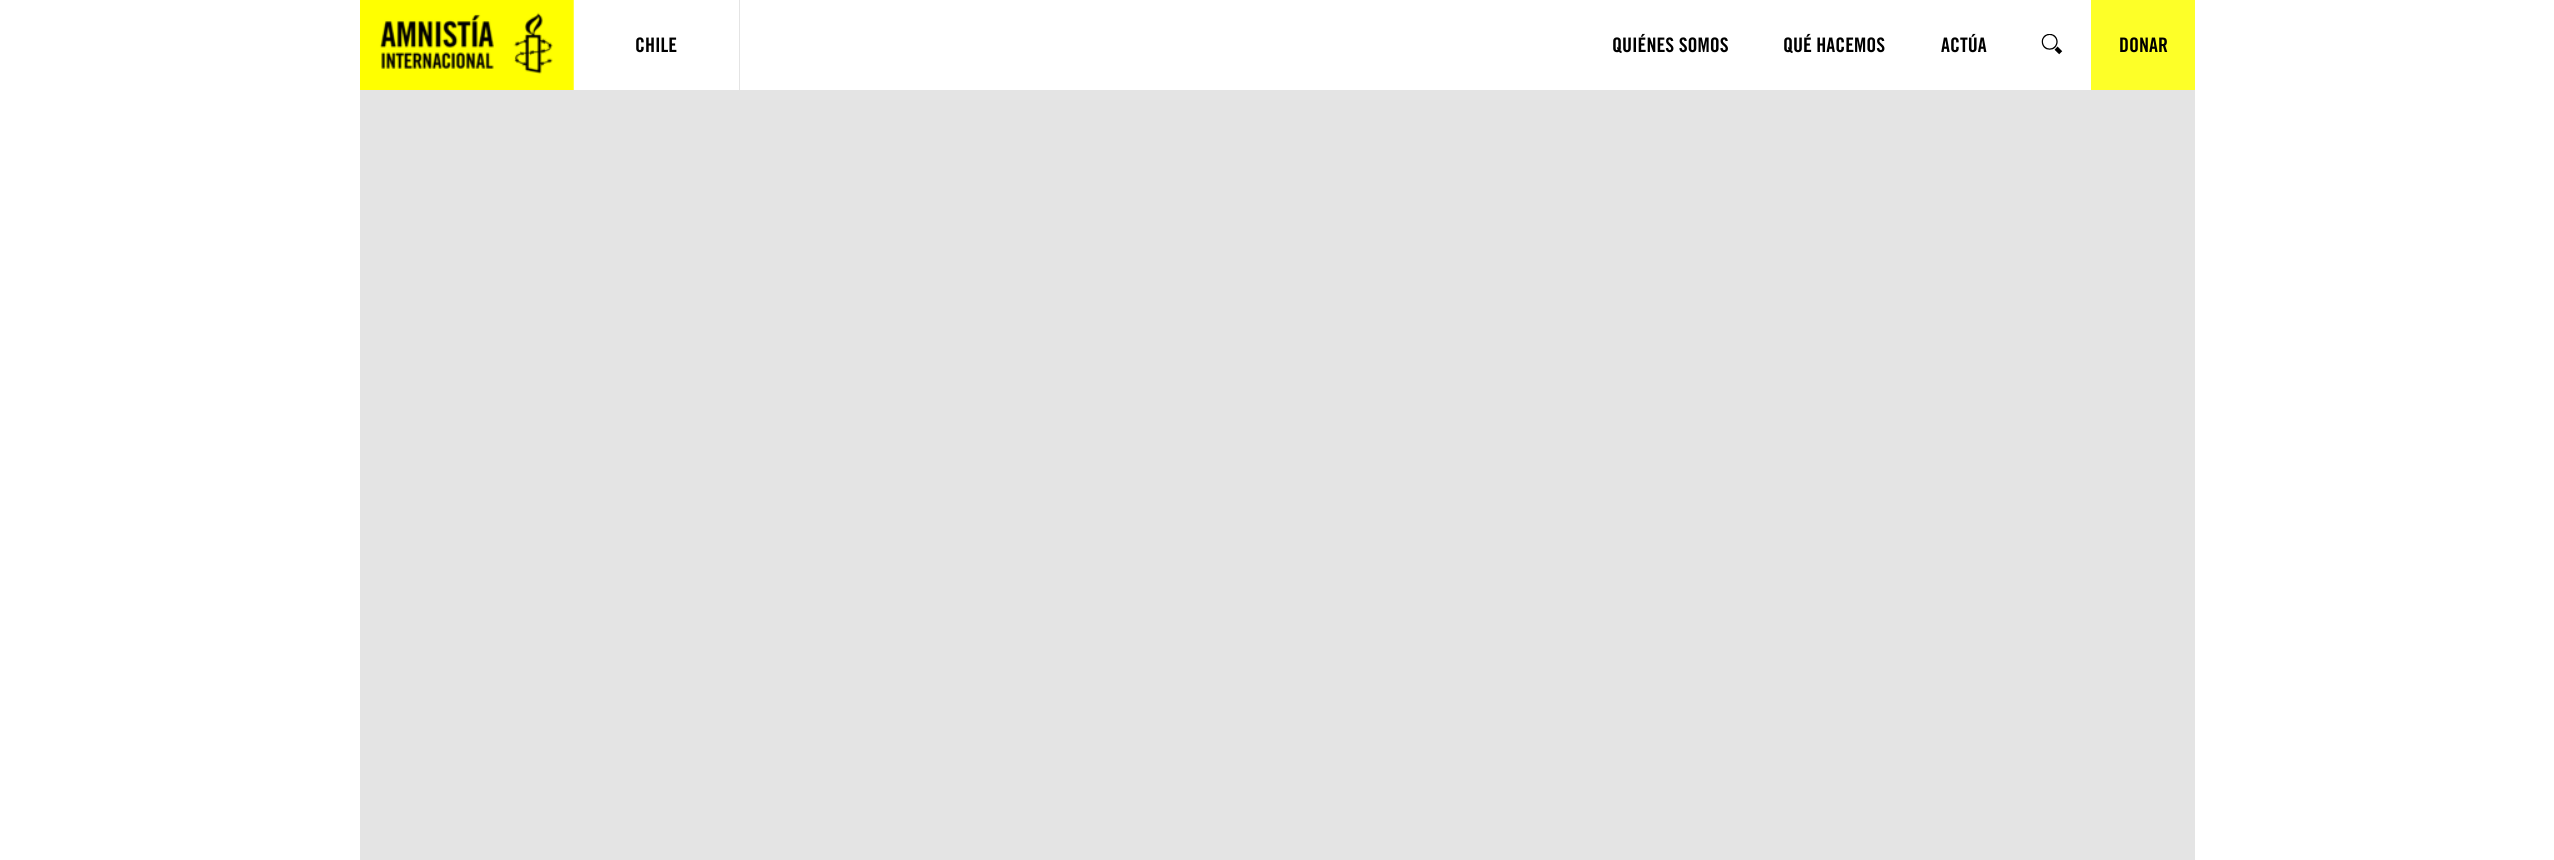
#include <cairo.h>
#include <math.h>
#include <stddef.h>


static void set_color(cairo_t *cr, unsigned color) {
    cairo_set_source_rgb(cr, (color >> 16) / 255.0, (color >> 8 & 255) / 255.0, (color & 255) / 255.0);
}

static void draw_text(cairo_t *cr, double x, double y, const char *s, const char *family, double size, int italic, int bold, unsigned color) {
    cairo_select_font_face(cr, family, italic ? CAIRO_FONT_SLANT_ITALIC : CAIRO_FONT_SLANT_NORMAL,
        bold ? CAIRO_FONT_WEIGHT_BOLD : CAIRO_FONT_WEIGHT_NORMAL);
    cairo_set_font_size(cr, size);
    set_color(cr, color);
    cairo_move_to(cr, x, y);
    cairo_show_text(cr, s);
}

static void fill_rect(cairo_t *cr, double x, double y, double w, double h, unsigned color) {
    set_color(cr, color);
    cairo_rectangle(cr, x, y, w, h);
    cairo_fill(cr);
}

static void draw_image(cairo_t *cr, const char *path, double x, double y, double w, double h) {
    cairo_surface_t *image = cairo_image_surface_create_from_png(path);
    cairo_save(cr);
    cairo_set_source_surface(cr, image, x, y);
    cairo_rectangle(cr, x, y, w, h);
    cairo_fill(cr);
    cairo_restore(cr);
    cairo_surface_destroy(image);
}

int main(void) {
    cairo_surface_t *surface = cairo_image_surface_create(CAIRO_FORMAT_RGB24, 2554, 860);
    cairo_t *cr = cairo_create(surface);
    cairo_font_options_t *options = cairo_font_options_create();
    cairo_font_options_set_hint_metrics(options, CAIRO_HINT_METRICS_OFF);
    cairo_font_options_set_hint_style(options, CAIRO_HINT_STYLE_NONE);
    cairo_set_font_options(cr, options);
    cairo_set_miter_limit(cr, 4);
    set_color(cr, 0xFFFFFF);
    cairo_paint(cr);
    draw_image(cr, "assets/img1.png", 360, 0, 214, 90);
    draw_text(cr, 635, 52, "CHILE", "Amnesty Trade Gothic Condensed", 20, 0, 1, 0x000000);
    fill_rect(cr, 739, 0, 1, 90, 0xE4E4E4);
    draw_text(cr, 1612, 52, "QUIÉNES SOMOS", "Amnesty Trade Gothic Condensed", 20, 0, 1, 0x000000);
    draw_text(cr, 1783, 52, "QUÉ HACEMOS", "Amnesty Trade Gothic Condensed", 20, 0, 1, 0x000000);
    draw_text(cr, 1941, 52, "ACTÚA", "Amnesty Trade Gothic Condensed", 20, 0, 1, 0x000000);
    draw_image(cr, "assets/img2.png", 2041, 34, 22, 21);
    fill_rect(cr, 2091, 0, 104, 90, 0xFDFF28);
    draw_text(cr, 2119, 52, "DONAR", "Amnesty Trade Gothic Condensed", 20, 0, 1, 0x000000);
    fill_rect(cr, 360, 90, 1835, 770, 0xE4E4E4);
    cairo_surface_write_to_png(surface, "output.png");
    cairo_font_options_destroy(options);
    cairo_destroy(cr);
    cairo_surface_destroy(surface);
    return 0;
}
